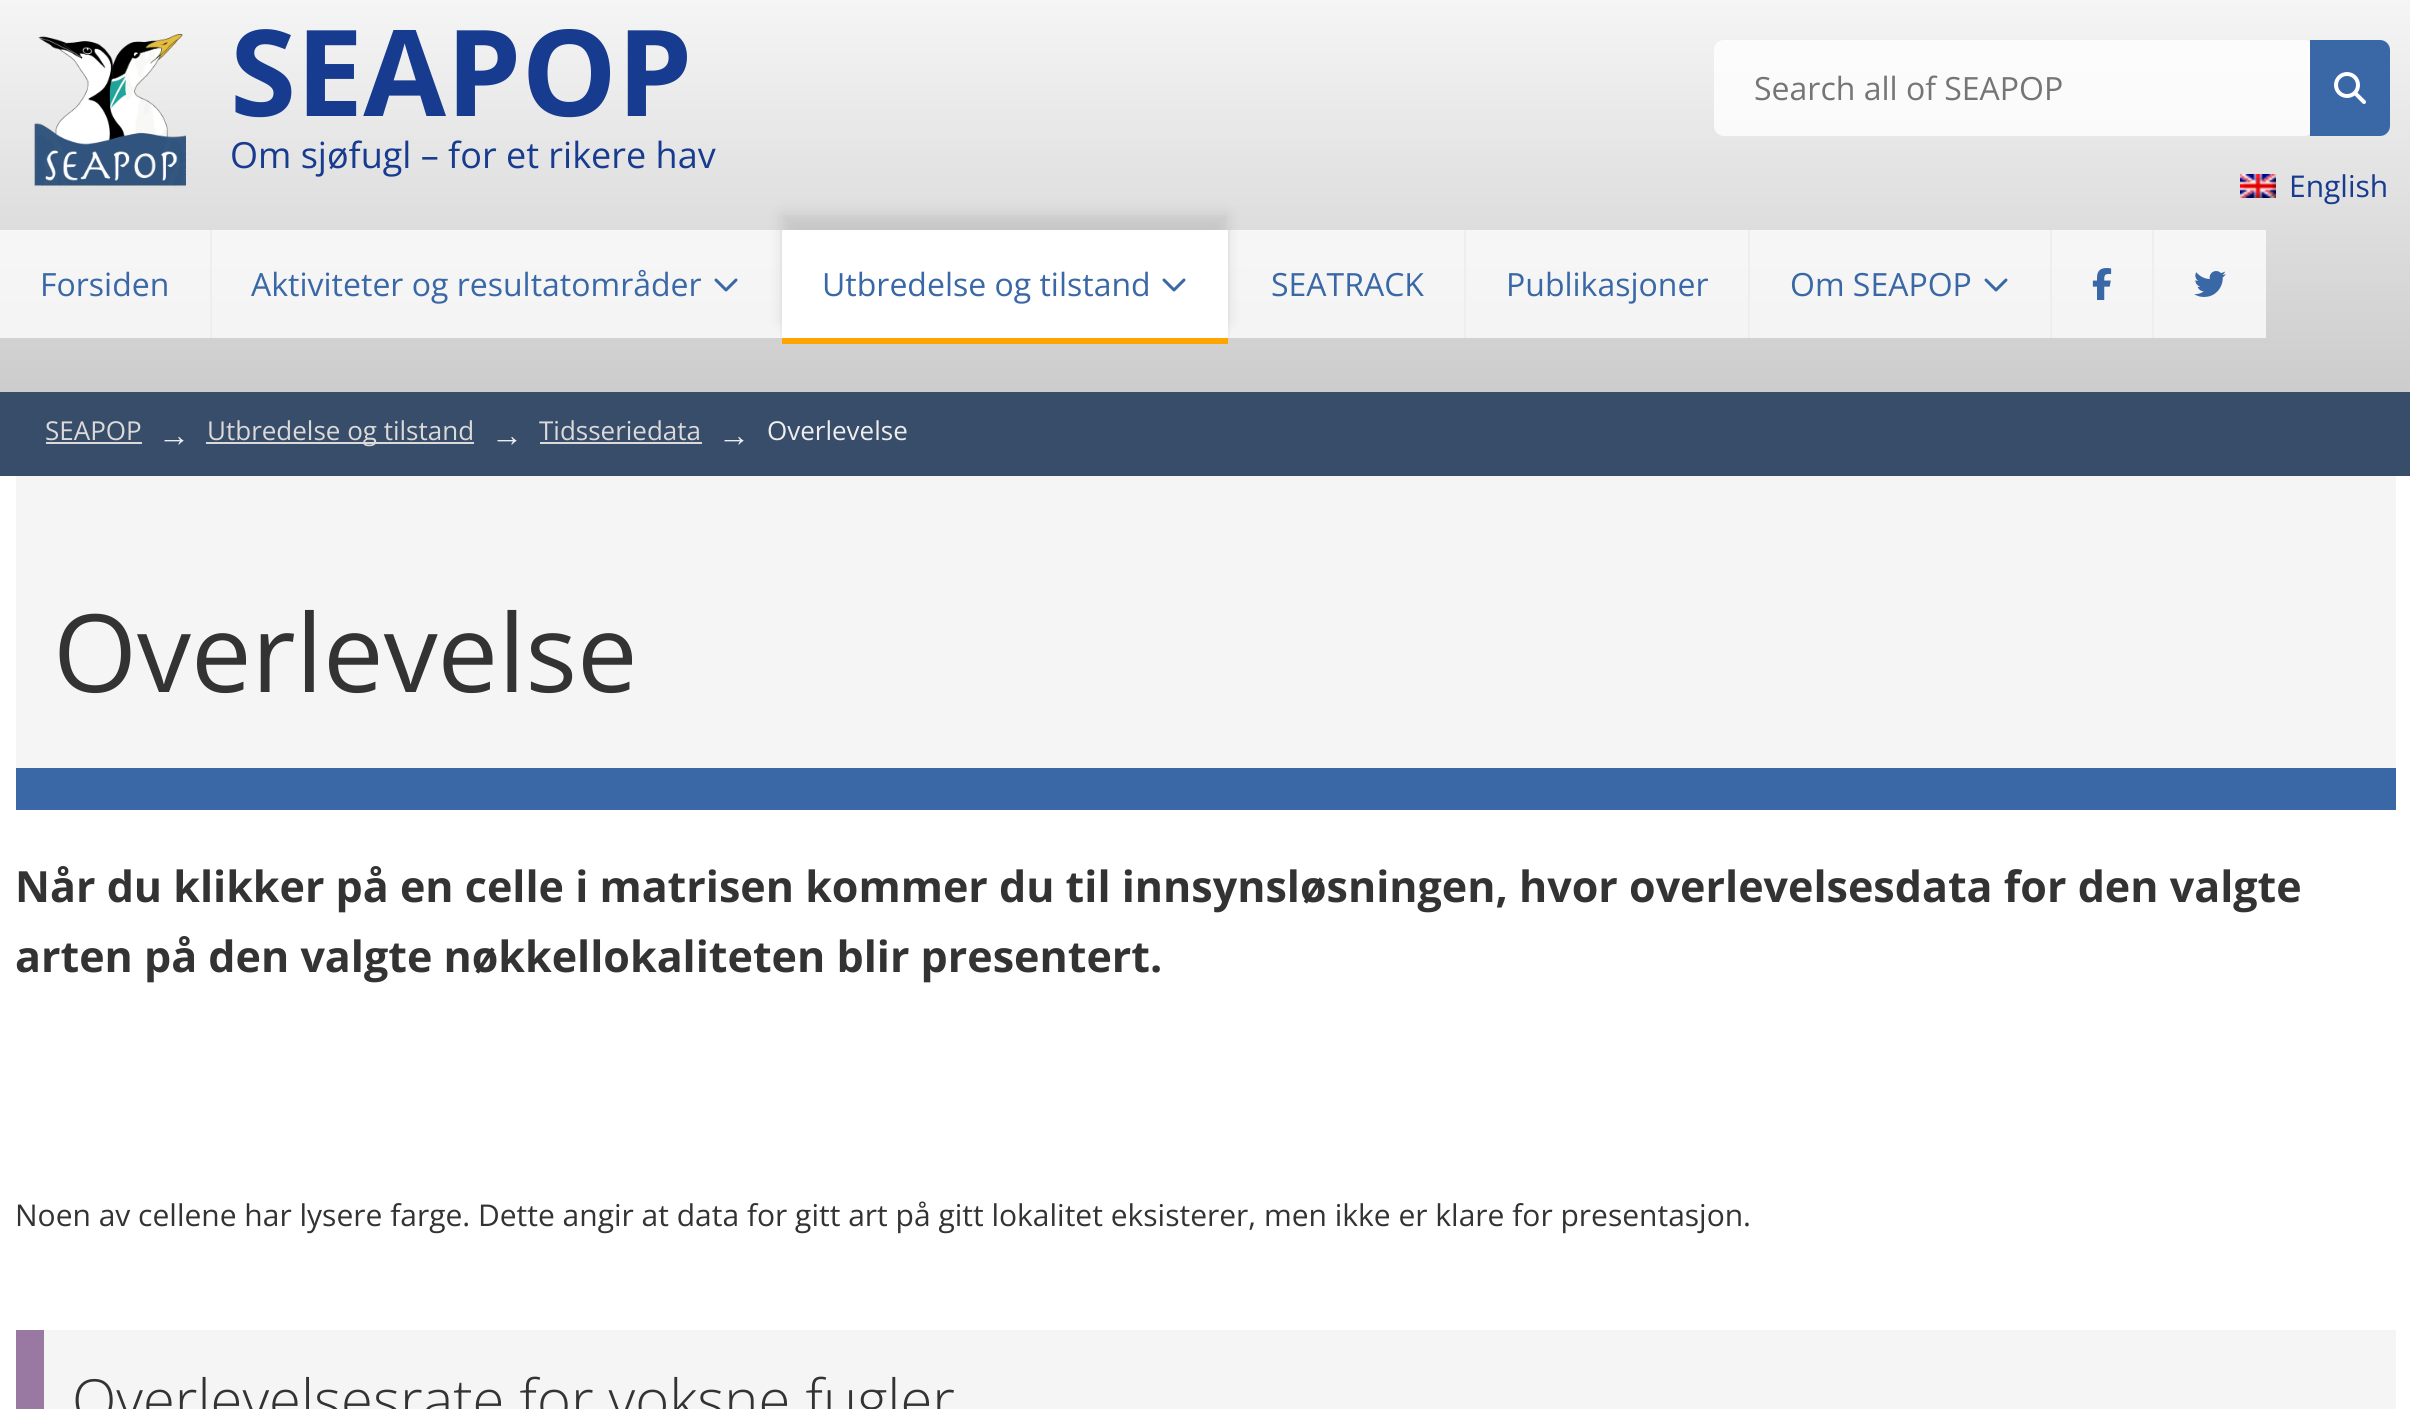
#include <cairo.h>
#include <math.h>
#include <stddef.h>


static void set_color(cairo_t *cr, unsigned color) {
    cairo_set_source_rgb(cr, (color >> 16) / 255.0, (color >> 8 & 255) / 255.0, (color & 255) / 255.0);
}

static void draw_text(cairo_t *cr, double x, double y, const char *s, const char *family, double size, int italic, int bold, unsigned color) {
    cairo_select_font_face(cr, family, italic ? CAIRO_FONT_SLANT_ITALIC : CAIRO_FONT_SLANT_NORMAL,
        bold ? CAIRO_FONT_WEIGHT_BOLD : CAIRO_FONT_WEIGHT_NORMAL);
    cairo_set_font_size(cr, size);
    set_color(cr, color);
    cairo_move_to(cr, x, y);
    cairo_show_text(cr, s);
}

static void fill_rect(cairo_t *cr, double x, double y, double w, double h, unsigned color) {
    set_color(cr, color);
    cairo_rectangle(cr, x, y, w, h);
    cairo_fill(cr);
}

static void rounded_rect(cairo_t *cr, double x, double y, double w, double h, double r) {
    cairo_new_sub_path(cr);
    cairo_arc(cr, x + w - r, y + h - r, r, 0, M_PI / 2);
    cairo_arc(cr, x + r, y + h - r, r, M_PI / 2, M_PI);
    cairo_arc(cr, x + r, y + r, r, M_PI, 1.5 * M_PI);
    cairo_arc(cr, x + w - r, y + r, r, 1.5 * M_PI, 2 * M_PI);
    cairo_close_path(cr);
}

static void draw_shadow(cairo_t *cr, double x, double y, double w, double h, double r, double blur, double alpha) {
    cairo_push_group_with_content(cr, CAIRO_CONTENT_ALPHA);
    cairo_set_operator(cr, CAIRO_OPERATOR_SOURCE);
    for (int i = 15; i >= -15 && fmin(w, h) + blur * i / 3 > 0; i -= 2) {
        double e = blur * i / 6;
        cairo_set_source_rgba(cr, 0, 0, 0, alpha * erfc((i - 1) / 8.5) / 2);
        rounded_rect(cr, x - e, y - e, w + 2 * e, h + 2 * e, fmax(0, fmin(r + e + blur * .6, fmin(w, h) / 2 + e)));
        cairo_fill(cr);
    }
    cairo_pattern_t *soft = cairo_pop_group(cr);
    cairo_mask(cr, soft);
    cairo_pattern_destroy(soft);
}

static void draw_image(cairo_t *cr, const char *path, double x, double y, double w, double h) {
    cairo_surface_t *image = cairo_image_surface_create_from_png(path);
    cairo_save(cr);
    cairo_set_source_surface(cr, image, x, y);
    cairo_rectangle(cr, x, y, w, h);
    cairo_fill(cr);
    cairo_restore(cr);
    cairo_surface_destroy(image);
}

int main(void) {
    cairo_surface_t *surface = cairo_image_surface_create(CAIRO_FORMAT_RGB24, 2410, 1409);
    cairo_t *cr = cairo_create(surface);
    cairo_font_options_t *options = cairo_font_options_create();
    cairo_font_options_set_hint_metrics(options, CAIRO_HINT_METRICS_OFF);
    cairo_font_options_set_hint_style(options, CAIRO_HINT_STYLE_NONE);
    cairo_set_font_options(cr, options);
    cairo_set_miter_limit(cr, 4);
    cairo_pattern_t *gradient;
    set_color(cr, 0xFFFFFF);
    cairo_paint(cr);
    gradient = cairo_pattern_create_linear(1205, 0, 1205, 392);
    cairo_pattern_add_color_stop_rgba(gradient, 0, 0.961, 0.961, 0.961, 1);
    cairo_pattern_add_color_stop_rgba(gradient, 1, 0.8, 0.8, 0.8, 1);
    cairo_set_source(cr, gradient);
    cairo_pattern_destroy(gradient);
    cairo_rectangle(cr, 0, 0, 2410, 392);
    cairo_fill(cr);
    gradient = cairo_pattern_create_linear(1205, 0, 1205, 392);
    cairo_pattern_add_color_stop_rgba(gradient, 0, 0.992, 0.992, 0.992, 1);
    cairo_pattern_add_color_stop_rgba(gradient, 1, 0.949, 0.949, 0.949, 1);
    cairo_set_source(cr, gradient);
    cairo_pattern_destroy(gradient);
    cairo_rectangle(cr, 0, 230, 2266, 108);
    cairo_fill(cr);
    draw_image(cr, "assets/img1.png", 34, 34, 152, 153);
    draw_text(cr, 230, 116, "SEAPOP", "Open Sans", 120, 0, 1, 0x173B8F);
    draw_text(cr, 230, 168, "Om sjøfugl – for et rikere hav", "Open Sans", 36, 0, 0, 0x173B8F);
    cairo_set_source_rgba(cr, 1, 1, 1, 0.8);
    rounded_rect(cr, 1714, 40, 600, 96, 10);
    cairo_fill(cr);
    draw_text(cr, 1754, 100, "Search all of SEAPOP", "Open Sans", 32, 0, 0, 0x757575);
    set_color(cr, 0x3A68A6);
    cairo_new_path(cr);
    cairo_move_to(cr, 2310, 40);
    cairo_line_to(cr, 2380, 40);
    cairo_curve_to(cr, 2385.5, 40, 2390, 44.5, 2390, 50);
    cairo_line_to(cr, 2390, 126);
    cairo_curve_to(cr, 2390, 131.5, 2385.5, 136, 2380, 136);
    cairo_line_to(cr, 2310, 136);
    cairo_close_path(cr);
    cairo_fill(cr);
    draw_image(cr, "assets/img2.png", 2334, 72, 32, 32);
    draw_image(cr, "assets/img3.png", 2240, 174, 36, 24);
    draw_text(cr, 2289, 197, "English", "Open Sans", 30, 0, 0, 0x173B8F);
    draw_text(cr, 40, 296, "Forsiden", "Open Sans", 32, 0, 0, 0x3A68A6);
    fill_rect(cr, 210, 230, 2, 108, 0xEEEEEE);
    draw_text(cr, 251, 296, "Aktiviteter og resultatområder", "Open Sans", 32, 0, 0, 0x3A68A6);
    draw_image(cr, "assets/img4.png", 714, 278, 24, 14);
    fill_rect(cr, 780, 230, 2, 108, 0xEEEEEE);
    fill_rect(cr, 1228, 230, 2, 108, 0xEEEEEE);
    set_color(cr, 0x000000);
    draw_shadow(cr, 782, 214, 446, 108, 0, 7, 0.1);
    fill_rect(cr, 782, 230, 446, 108, 0xFFFFFF);
    draw_text(cr, 822, 296, "Utbredelse og tilstand", "Open Sans", 32, 0, 0, 0x3A68A6);
    draw_image(cr, "assets/img5.png", 1162, 278, 24, 14);
    fill_rect(cr, 782, 338, 446, 6, 0xFFA500);
    draw_text(cr, 1271, 296, "SEATRACK", "Open Sans", 32, 0, 0, 0x3A68A6);
    fill_rect(cr, 1464, 230, 2, 108, 0xEEEEEE);
    draw_text(cr, 1506, 296, "Publikasjoner", "Open Sans", 32, 0, 0, 0x3A68A6);
    fill_rect(cr, 1748, 230, 2, 108, 0xEEEEEE);
    draw_text(cr, 1790, 296, "Om SEAPOP", "Open Sans", 32, 0, 0, 0x3A68A6);
    draw_image(cr, "assets/img4.png", 1984, 278, 24, 14);
    fill_rect(cr, 2050, 230, 2, 108, 0xEEEEEE);
    draw_image(cr, "assets/img6.png", 2092, 268, 20, 32);
    fill_rect(cr, 2152, 230, 2, 108, 0xEEEEEE);
    draw_image(cr, "assets/img7.png", 2194, 271, 32, 26);
    fill_rect(cr, 0, 392, 2410, 84, 0x384D6A);
    draw_text(cr, 45, 440, "SEAPOP", "Open Sans", 26, 0, 0, 0xDCD9D9);
    fill_rect(cr, 46, 442, 96, 2, 0xDCD9D9);
    draw_text(cr, 158, 446, "→", "Liberation Sans", 32, 0, 0, 0xEEEEEE);
    fill_rect(cr, 206, 442, 268, 2, 0xDCD9D9);
    draw_text(cr, 207, 440, "Utbredelse og tilstand", "Open Sans", 26, 0, 0, 0xDCD9D9);
    draw_text(cr, 491, 446, "→", "Liberation Sans", 32, 0, 0, 0xEEEEEE);
    draw_text(cr, 539, 440, "Tidsseriedata", "Open Sans", 26, 0, 0, 0xDCD9D9);
    fill_rect(cr, 540, 442, 162, 2, 0xDCD9D9);
    draw_text(cr, 718, 446, "→", "Liberation Sans", 32, 0, 0, 0xEEEEEE);
    draw_text(cr, 767, 440, "Overlevelse", "Open Sans", 26, 0, 0, 0xEEEEEE);
    fill_rect(cr, 16, 476, 2380, 292, 0xF5F5F5);
    fill_rect(cr, 16, 768, 2380, 42, 0x3A68A6);
    draw_text(cr, 53, 692, "Overlevelse", "Open Sans", 108, 0, 0, 0x333333);
    draw_text(cr, 15, 902, "Når du klikker på en celle i matrisen kommer du til innsynsløsningen, hvor overlevelsesdata for den valgte", "Open Sans", 43, 0, 1, 0x333333);
    draw_text(cr, 15, 972, "arten på den valgte nøkkellokaliteten blir presentert.", "Open Sans", 43, 0, 1, 0x333333);
    draw_text(cr, 15, 1226, "Noen av cellene har lysere farge. Dette angir at data for gitt art på gitt lokalitet eksisterer, men ikke er klare for presentasjon.", "Open Sans", 30, 0, 0, 0x333333);
    fill_rect(cr, 44, 1330, 2352, 79, 0xF5F5F5);
    fill_rect(cr, 16, 1330, 28, 79, 0x9978A1);
    draw_text(cr, 72, 1421, "Overlevelsesrate for voksne fugler", "Open Sans Light", 58, 0, 0, 0x333333);
    cairo_surface_write_to_png(surface, "output.png");
    cairo_font_options_destroy(options);
    cairo_destroy(cr);
    cairo_surface_destroy(surface);
    return 0;
}
